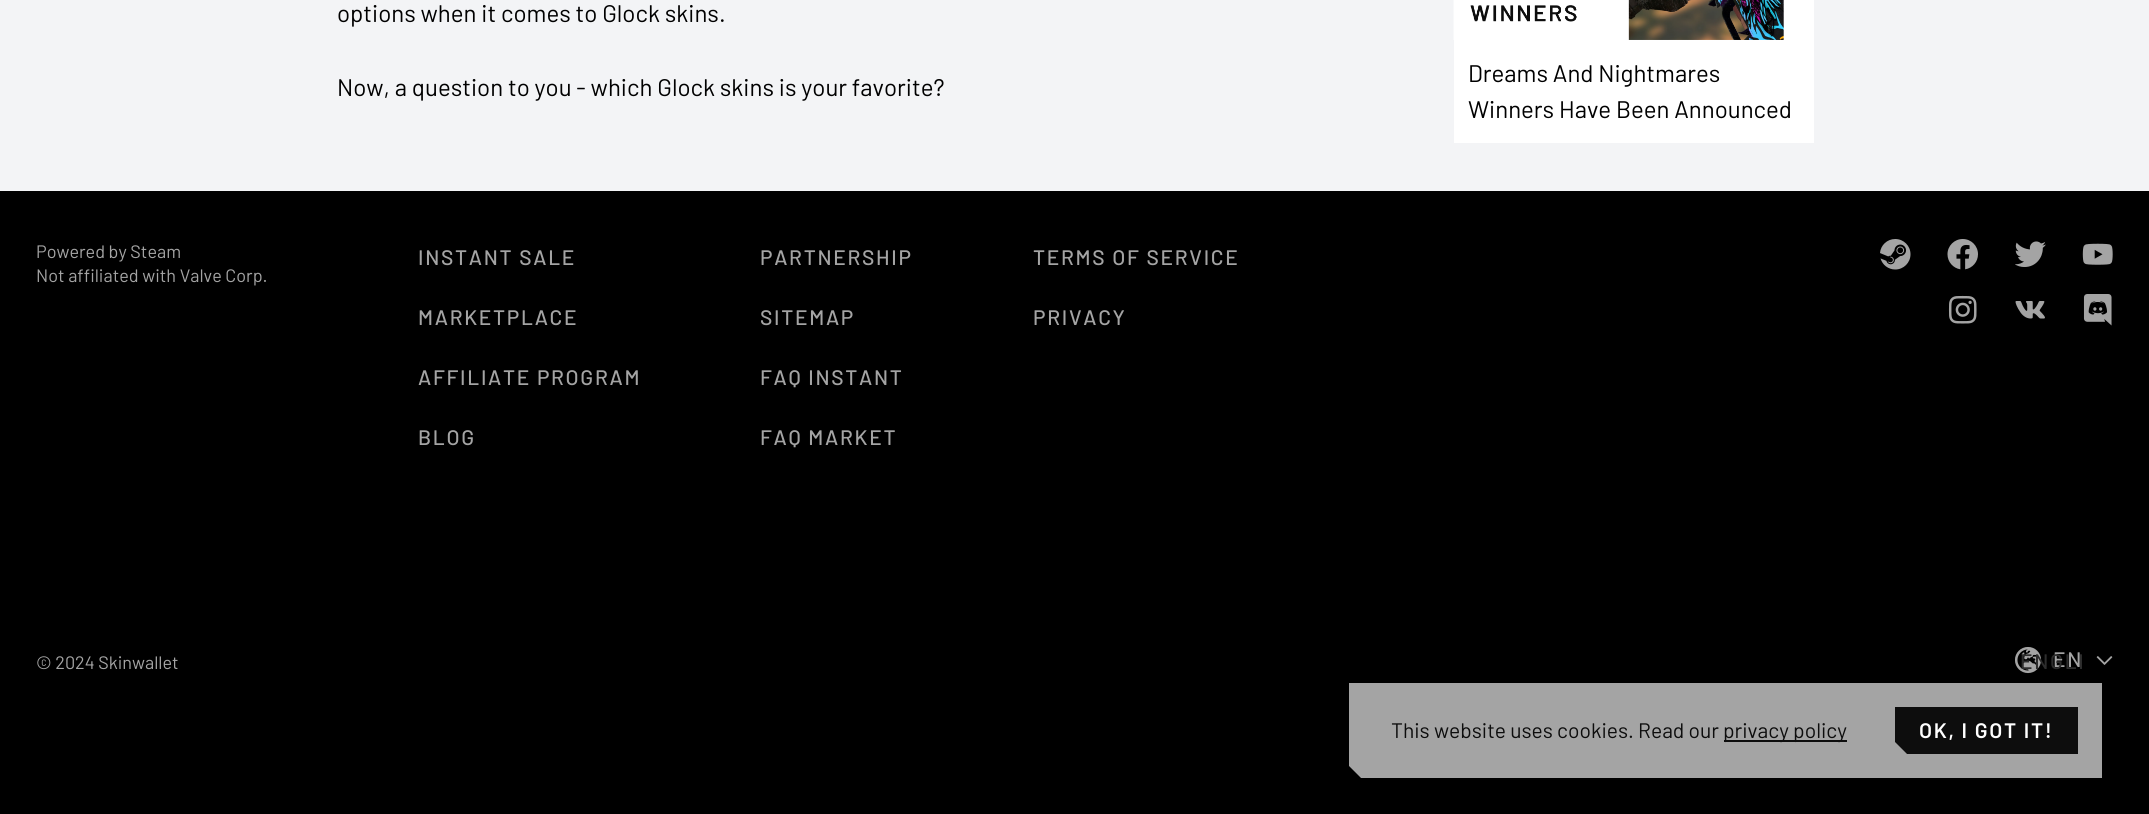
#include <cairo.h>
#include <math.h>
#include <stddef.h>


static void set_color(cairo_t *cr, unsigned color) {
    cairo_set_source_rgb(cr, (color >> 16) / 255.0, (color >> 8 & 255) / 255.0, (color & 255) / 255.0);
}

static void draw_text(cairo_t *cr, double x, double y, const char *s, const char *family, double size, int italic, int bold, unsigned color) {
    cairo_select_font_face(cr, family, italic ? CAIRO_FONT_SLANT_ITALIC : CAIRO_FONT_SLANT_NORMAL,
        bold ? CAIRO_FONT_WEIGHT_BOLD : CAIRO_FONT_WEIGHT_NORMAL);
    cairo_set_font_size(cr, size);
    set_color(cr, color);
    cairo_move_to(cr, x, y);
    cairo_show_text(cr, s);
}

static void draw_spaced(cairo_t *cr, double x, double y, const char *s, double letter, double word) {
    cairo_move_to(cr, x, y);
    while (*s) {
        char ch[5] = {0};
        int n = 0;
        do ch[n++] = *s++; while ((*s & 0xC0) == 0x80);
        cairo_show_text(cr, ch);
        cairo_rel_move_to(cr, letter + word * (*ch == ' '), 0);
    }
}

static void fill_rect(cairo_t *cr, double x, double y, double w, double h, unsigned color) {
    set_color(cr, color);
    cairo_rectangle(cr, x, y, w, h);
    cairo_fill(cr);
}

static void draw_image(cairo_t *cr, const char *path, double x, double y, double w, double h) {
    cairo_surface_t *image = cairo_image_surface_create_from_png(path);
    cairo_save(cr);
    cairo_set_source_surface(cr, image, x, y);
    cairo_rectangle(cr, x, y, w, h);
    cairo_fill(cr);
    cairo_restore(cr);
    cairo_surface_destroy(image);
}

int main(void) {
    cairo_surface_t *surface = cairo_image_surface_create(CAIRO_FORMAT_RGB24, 2149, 814);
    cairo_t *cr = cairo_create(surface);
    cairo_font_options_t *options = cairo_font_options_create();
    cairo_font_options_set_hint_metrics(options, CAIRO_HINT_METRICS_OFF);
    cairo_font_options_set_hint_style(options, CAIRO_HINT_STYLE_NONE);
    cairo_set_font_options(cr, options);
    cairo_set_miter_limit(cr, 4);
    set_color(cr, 0xF3F4F6);
    cairo_paint(cr);
    draw_text(cr, 337, 22, "options when it comes to Glock skins.", "Barlow", 24, 0, 0, 0x000000);
    draw_text(cr, 337, 96, "Now, a question to you - which Glock skins is your favorite?", "Barlow", 24, 0, 0, 0x000000);
    fill_rect(cr, 1454, 0, 360, 143, 0xFFFFFF);
    draw_image(cr, "assets/img1.png", 1453, 0, 331, 40);
    draw_text(cr, 1468, 82, "Dreams And Nightmares", "Barlow", 24, 0, 0, 0x000000);
    draw_text(cr, 1468, 118, "Winners Have Been Announced", "Barlow", 24, 0, 0, 0x000000);
    fill_rect(cr, 0, 191, 2149, 623, 0x000000);
    draw_text(cr, 36, 258, "Powered by Steam", "Barlow", 18, 0, 0, 0xA4A4A4);
    draw_text(cr, 36, 282, "Not affiliated with Valve Corp.", "Barlow", 18, 0, 0, 0xA4A4A4);
    cairo_select_font_face(cr, "Barlow Medium", CAIRO_FONT_SLANT_NORMAL, CAIRO_FONT_WEIGHT_NORMAL);
    cairo_set_font_size(cr, 21);
    draw_spaced(cr, 418, 265, "INSTANT SALE", 1.7, 0);
    draw_spaced(cr, 418, 325, "MARKETPLACE", 1.7, 0);
    draw_spaced(cr, 418, 385, "AFFILIATE PROGRAM", 1.7, 0);
    draw_spaced(cr, 418, 445, "BLOG", 1.7, 0);
    draw_spaced(cr, 760, 265, "PARTNERSHIP", 1.7, 0);
    draw_spaced(cr, 760, 325, "SITEMAP", 1.7, 0);
    draw_spaced(cr, 760, 385, "FAQ INSTANT", 1.7, 0);
    draw_spaced(cr, 760, 445, "FAQ MARKET", 1.7, 0);
    draw_spaced(cr, 1033, 265, "TERMS OF SERVICE", 1.7, 0);
    draw_spaced(cr, 1033, 325, "PRIVACY", 1.7, 0);
    draw_image(cr, "assets/img2.png", 1880, 239, 31, 31);
    draw_image(cr, "assets/img3.png", 1947, 239, 31, 31);
    draw_image(cr, "assets/img4.png", 2015, 241, 31, 26);
    draw_image(cr, "assets/img5.png", 2082, 243, 31, 22);
    draw_image(cr, "assets/img6.png", 1948, 295, 29, 29);
    draw_image(cr, "assets/img7.png", 2015, 301, 30, 18);
    draw_image(cr, "assets/img8.png", 2083, 294, 29, 32);
    draw_text(cr, 36, 669, "© 2024 Skinwallet", "Barlow", 18, 0, 0, 0xA4A4A4);
    draw_image(cr, "assets/img9.png", 2015, 647, 27, 27);
    cairo_select_font_face(cr, "Barlow Medium", CAIRO_FONT_SLANT_NORMAL, CAIRO_FONT_WEIGHT_NORMAL);
    cairo_set_font_size(cr, 21);
    draw_spaced(cr, 2053, 667, "EN", 1.7, 0);
    set_color(cr, 0x2D2D2D);
    draw_spaced(cr, 2020, 669, "ENGLI", 1.7, 0);
    draw_image(cr, "assets/img10.png", 2096, 656, 17, 9);
    set_color(cr, 0xA4A4A4);
    cairo_new_path(cr);
    cairo_move_to(cr, 2102, 683);
    cairo_line_to(cr, 2102, 778);
    cairo_line_to(cr, 1361, 778);
    cairo_line_to(cr, 1349, 766);
    cairo_line_to(cr, 1349, 683);
    cairo_close_path(cr);
    cairo_fill(cr);
    draw_text(cr, 1391, 738, "This website uses cookies. Read our", "Barlow", 21, 0, 0, 0x0D0D0D);
    fill_rect(cr, 1724, 740, 123, 2, 0x0D0D0D);
    draw_text(cr, 1723, 738, "privacy policy", "Barlow", 21, 0, 0, 0x0D0D0D);
    cairo_new_path(cr);
    cairo_move_to(cr, 2078, 707);
    cairo_line_to(cr, 2078, 754);
    cairo_line_to(cr, 1907, 754);
    cairo_line_to(cr, 1895, 742);
    cairo_line_to(cr, 1895, 707);
    cairo_close_path(cr);
    cairo_fill(cr);
    cairo_select_font_face(cr, "Barlow SemiBold", CAIRO_FONT_SLANT_NORMAL, CAIRO_FONT_WEIGHT_NORMAL);
    set_color(cr, 0xFFFFFF);
    draw_spaced(cr, 1919, 738, "OK, I GOT IT!", 1.7, 0);
    cairo_surface_write_to_png(surface, "output.png");
    cairo_font_options_destroy(options);
    cairo_destroy(cr);
    cairo_surface_destroy(surface);
    return 0;
}
